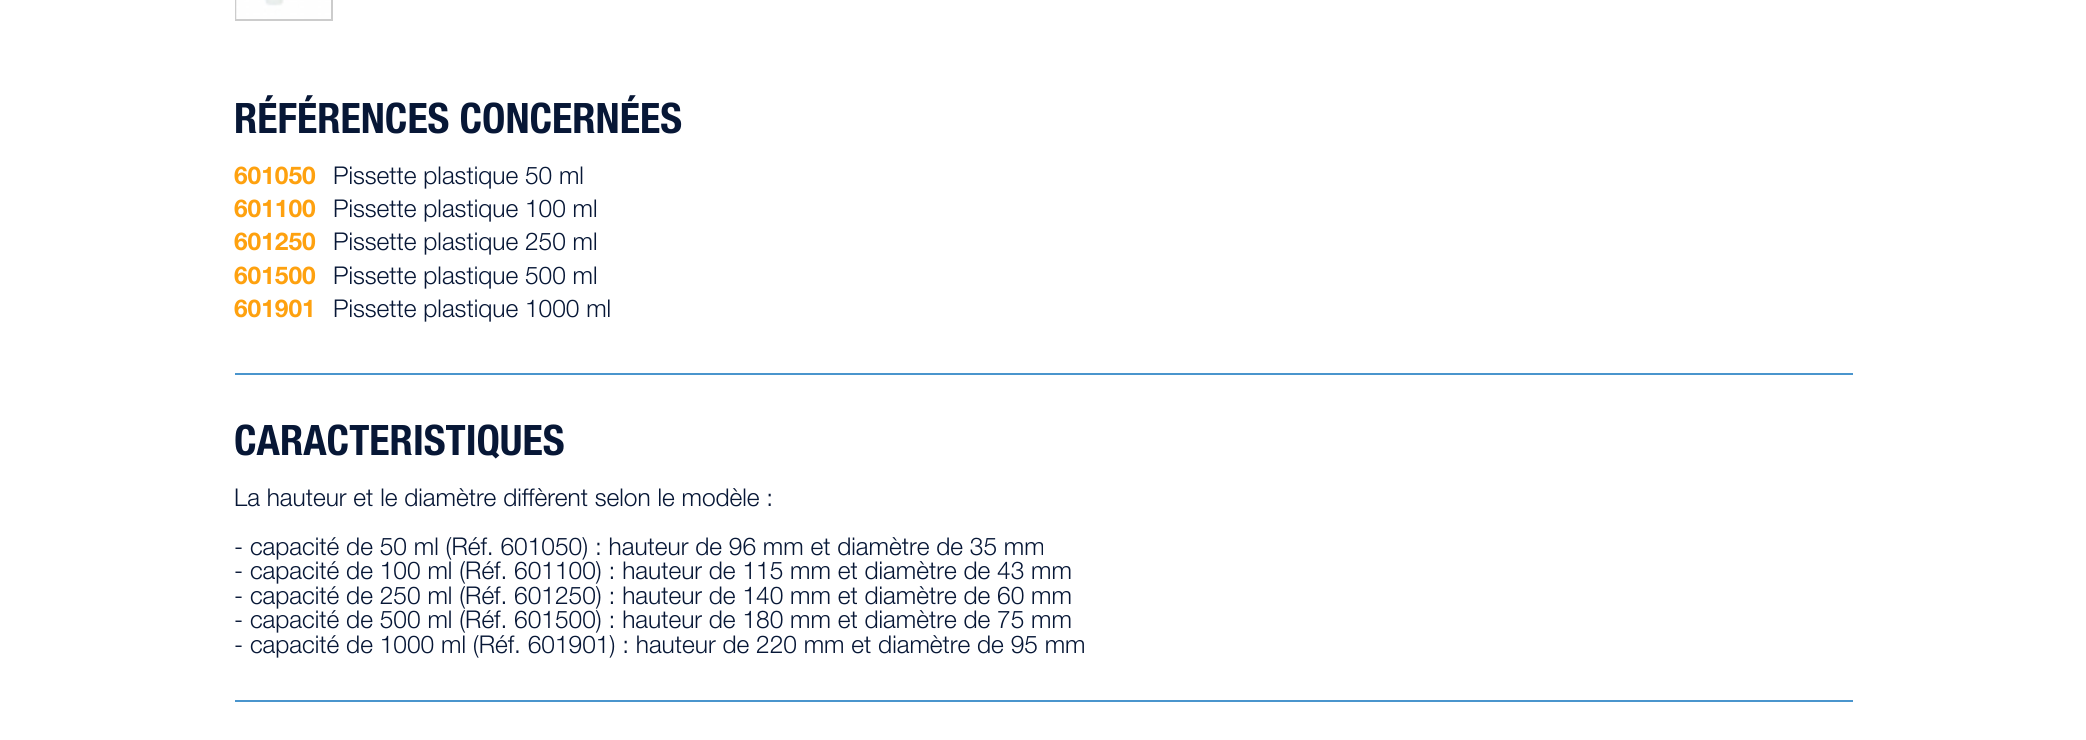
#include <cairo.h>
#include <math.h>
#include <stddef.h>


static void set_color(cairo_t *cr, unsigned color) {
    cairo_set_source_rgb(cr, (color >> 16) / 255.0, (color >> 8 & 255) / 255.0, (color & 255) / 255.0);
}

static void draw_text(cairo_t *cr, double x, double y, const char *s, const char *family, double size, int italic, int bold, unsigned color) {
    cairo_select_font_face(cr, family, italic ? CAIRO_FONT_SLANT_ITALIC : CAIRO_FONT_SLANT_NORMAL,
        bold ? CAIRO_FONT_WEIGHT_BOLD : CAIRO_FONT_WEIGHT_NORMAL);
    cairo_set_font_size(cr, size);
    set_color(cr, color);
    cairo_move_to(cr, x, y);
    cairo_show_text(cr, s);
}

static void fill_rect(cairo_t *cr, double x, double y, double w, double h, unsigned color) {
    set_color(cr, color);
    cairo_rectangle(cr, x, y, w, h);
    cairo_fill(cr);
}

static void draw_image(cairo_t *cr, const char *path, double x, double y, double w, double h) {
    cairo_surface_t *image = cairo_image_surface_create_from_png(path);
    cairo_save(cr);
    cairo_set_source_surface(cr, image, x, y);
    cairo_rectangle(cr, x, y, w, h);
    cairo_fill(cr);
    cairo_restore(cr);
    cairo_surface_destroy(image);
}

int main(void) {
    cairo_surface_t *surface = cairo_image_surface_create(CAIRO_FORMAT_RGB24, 2086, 740);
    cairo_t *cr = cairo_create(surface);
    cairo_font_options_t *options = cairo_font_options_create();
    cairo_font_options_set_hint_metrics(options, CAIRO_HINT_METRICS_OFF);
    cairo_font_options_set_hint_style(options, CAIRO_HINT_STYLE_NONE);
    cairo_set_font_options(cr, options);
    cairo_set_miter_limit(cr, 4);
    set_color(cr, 0xFFFFFF);
    cairo_paint(cr);
    cairo_rectangle(cr, 236, -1, 96, 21);
    set_color(cr, 0xCCCCCC);
    cairo_stroke(cr);
    draw_image(cr, "assets/img1.png", 236, 0, 95, 19);
    draw_text(cr, 234, 133, "RÉFÉRENCES CONCERNÉES", "Helvetica Neue", 42, 0, 1, 0x071736);
    draw_text(cr, 234, 184, "601050", "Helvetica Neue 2", 24.5, 0, 1, 0xFEA10F);
    draw_text(cr, 333, 184, "Pissette plastique 50 ml", "Helvetica Neue Light", 24.5, 0, 0, 0x071736);
    draw_text(cr, 234, 217, "601100", "Helvetica Neue 2", 24.5, 0, 1, 0xFEA10F);
    draw_text(cr, 333, 217, "Pissette plastique 100 ml", "Helvetica Neue Light", 24.5, 0, 0, 0x071736);
    draw_text(cr, 234, 250, "601250", "Helvetica Neue 2", 24.5, 0, 1, 0xFEA10F);
    draw_text(cr, 333, 250, "Pissette plastique 250 ml", "Helvetica Neue Light", 24.5, 0, 0, 0x071736);
    draw_text(cr, 234, 284, "601500", "Helvetica Neue 2", 24.5, 0, 1, 0xFEA10F);
    draw_text(cr, 333, 284, "Pissette plastique 500 ml", "Helvetica Neue Light", 24.5, 0, 0, 0x071736);
    draw_text(cr, 234, 317, "601901", "Helvetica Neue 2", 24.5, 0, 1, 0xFEA10F);
    draw_text(cr, 333, 317, "Pissette plastique 1000 ml", "Helvetica Neue Light", 24.5, 0, 0, 0x071736);
    fill_rect(cr, 235, 700, 1618, 2, 0x4A95CD);
    fill_rect(cr, 235, 373, 1618, 2, 0x4A95CD);
    draw_text(cr, 234, 455, "CARACTERISTIQUES", "Helvetica Neue", 42, 0, 1, 0x071736);
    draw_text(cr, 234, 506, "La hauteur et le diamètre diffèrent selon le modèle :", "Helvetica Neue Light", 24.5, 0, 0, 0x071736);
    draw_text(cr, 234, 555, "- capacité de 50 ml (Réf. 601050) : hauteur de 96 mm et diamètre de 35 mm", "Helvetica Neue Light", 24.5, 0, 0, 0x071736);
    draw_text(cr, 234, 579, "- capacité de 100 ml (Réf. 601100) : hauteur de 115 mm et diamètre de 43 mm", "Helvetica Neue Light", 24.5, 0, 0, 0x071736);
    draw_text(cr, 234, 604, "- capacité de 250 ml (Réf. 601250) : hauteur de 140 mm et diamètre de 60 mm", "Helvetica Neue Light", 24.5, 0, 0, 0x071736);
    draw_text(cr, 234, 628, "- capacité de 500 ml (Réf. 601500) : hauteur de 180 mm et diamètre de 75 mm", "Helvetica Neue Light", 24.5, 0, 0, 0x071736);
    draw_text(cr, 234, 653, "- capacité de 1000 ml (Réf. 601901) : hauteur de 220 mm et diamètre de 95 mm", "Helvetica Neue Light", 24.5, 0, 0, 0x071736);
    cairo_surface_write_to_png(surface, "output.png");
    cairo_font_options_destroy(options);
    cairo_destroy(cr);
    cairo_surface_destroy(surface);
    return 0;
}
